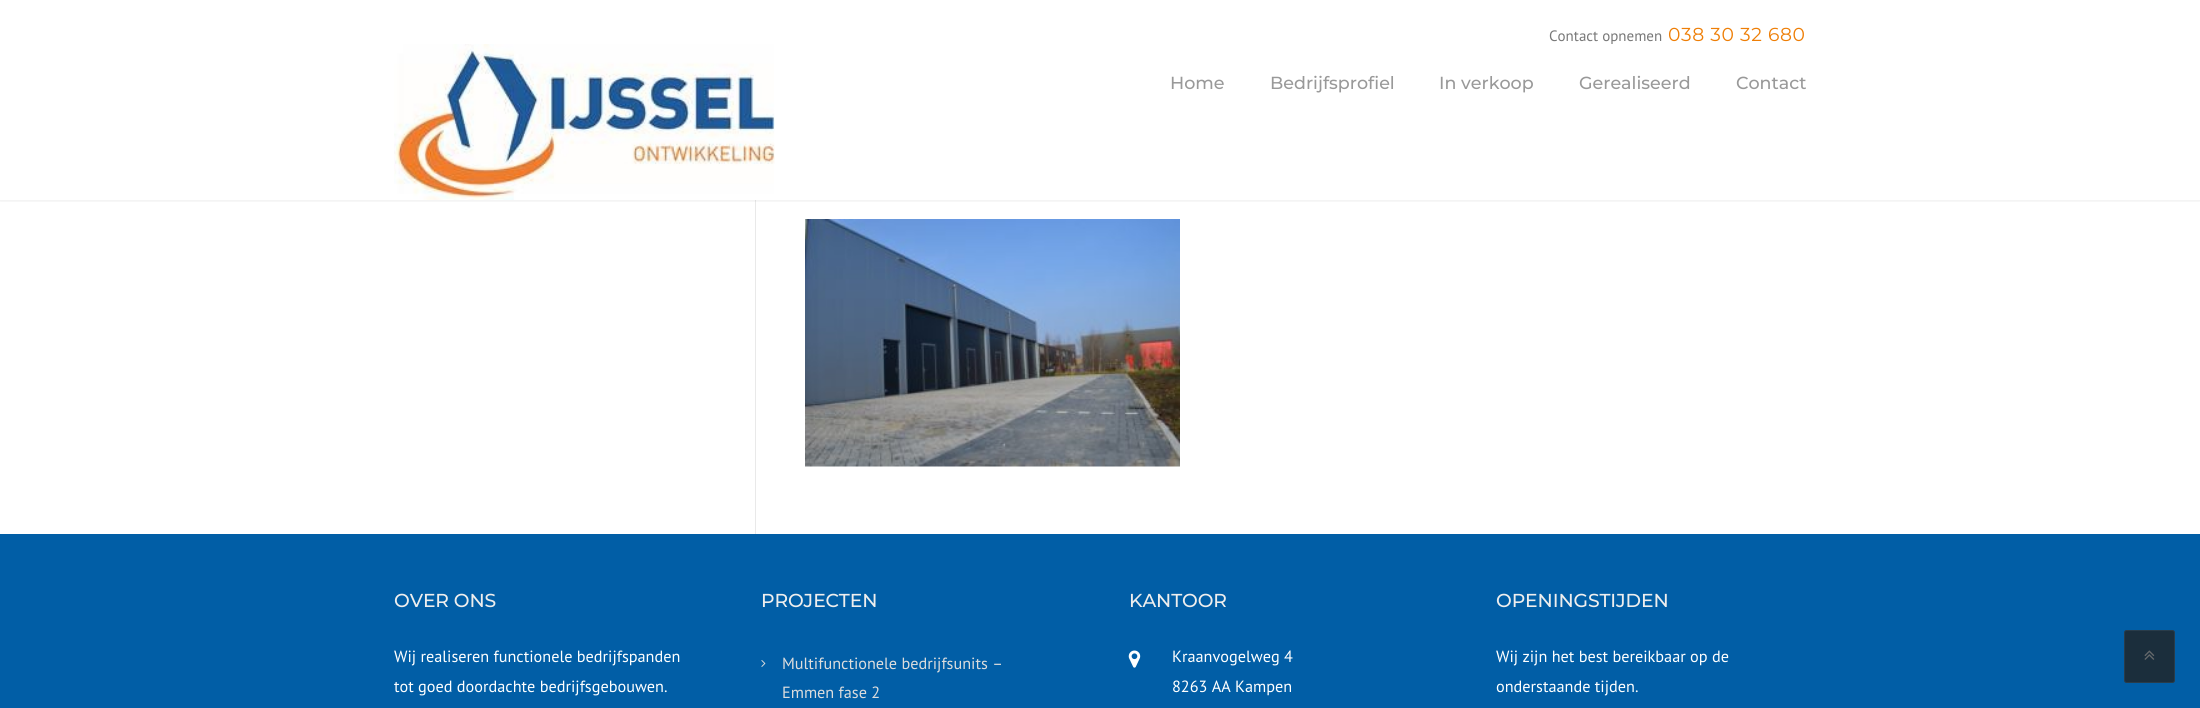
#include <cairo.h>
#include <math.h>
#include <stddef.h>


static void set_color(cairo_t *cr, unsigned color) {
    cairo_set_source_rgb(cr, (color >> 16) / 255.0, (color >> 8 & 255) / 255.0, (color & 255) / 255.0);
}

static void draw_text(cairo_t *cr, double x, double y, const char *s, const char *family, double size, int italic, int bold, unsigned color) {
    cairo_select_font_face(cr, family, italic ? CAIRO_FONT_SLANT_ITALIC : CAIRO_FONT_SLANT_NORMAL,
        bold ? CAIRO_FONT_WEIGHT_BOLD : CAIRO_FONT_WEIGHT_NORMAL);
    cairo_set_font_size(cr, size);
    set_color(cr, color);
    cairo_move_to(cr, x, y);
    cairo_show_text(cr, s);
}

static void draw_spaced(cairo_t *cr, double x, double y, const char *s, double letter, double word) {
    cairo_move_to(cr, x, y);
    while (*s) {
        char ch[5] = {0};
        int n = 0;
        do ch[n++] = *s++; while ((*s & 0xC0) == 0x80);
        cairo_show_text(cr, ch);
        cairo_rel_move_to(cr, letter + word * (*ch == ' '), 0);
    }
}

static void fill_rect(cairo_t *cr, double x, double y, double w, double h, unsigned color) {
    set_color(cr, color);
    cairo_rectangle(cr, x, y, w, h);
    cairo_fill(cr);
}

static void rounded_rect(cairo_t *cr, double x, double y, double w, double h, double r) {
    cairo_new_sub_path(cr);
    cairo_arc(cr, x + w - r, y + h - r, r, 0, M_PI / 2);
    cairo_arc(cr, x + r, y + h - r, r, M_PI / 2, M_PI);
    cairo_arc(cr, x + r, y + r, r, M_PI, 1.5 * M_PI);
    cairo_arc(cr, x + w - r, y + r, r, 1.5 * M_PI, 2 * M_PI);
    cairo_close_path(cr);
}

static void draw_shadow(cairo_t *cr, double x, double y, double w, double h, double r, double blur, double alpha) {
    cairo_push_group_with_content(cr, CAIRO_CONTENT_ALPHA);
    cairo_set_operator(cr, CAIRO_OPERATOR_SOURCE);
    for (int i = 15; i >= -15 && fmin(w, h) + blur * i / 3 > 0; i -= 2) {
        double e = blur * i / 6;
        cairo_set_source_rgba(cr, 0, 0, 0, alpha * erfc((i - 1) / 8.5) / 2);
        rounded_rect(cr, x - e, y - e, w + 2 * e, h + 2 * e, fmax(0, fmin(r + e + blur * .6, fmin(w, h) / 2 + e)));
        cairo_fill(cr);
    }
    cairo_pattern_t *soft = cairo_pop_group(cr);
    cairo_mask(cr, soft);
    cairo_pattern_destroy(soft);
}

static void draw_image(cairo_t *cr, const char *path, double x, double y, double w, double h) {
    cairo_surface_t *image = cairo_image_surface_create_from_png(path);
    cairo_save(cr);
    cairo_set_source_surface(cr, image, x, y);
    cairo_rectangle(cr, x, y, w, h);
    cairo_fill(cr);
    cairo_restore(cr);
    cairo_surface_destroy(image);
}

int main(void) {
    cairo_surface_t *surface = cairo_image_surface_create(CAIRO_FORMAT_RGB24, 2200, 708);
    cairo_t *cr = cairo_create(surface);
    cairo_font_options_t *options = cairo_font_options_create();
    cairo_font_options_set_hint_metrics(options, CAIRO_HINT_METRICS_OFF);
    cairo_font_options_set_hint_style(options, CAIRO_HINT_STYLE_NONE);
    cairo_set_font_options(cr, options);
    cairo_set_miter_limit(cr, 4);
    set_color(cr, 0xFFFFFF);
    cairo_paint(cr);
    fill_rect(cr, 755, 200, 1, 334, 0xE9E9E9);
    cairo_save(cr);
    cairo_rectangle(cr, 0, 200, 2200, 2);
    cairo_clip(cr);
    set_color(cr, 0x000000);
    draw_shadow(cr, 0, 1, 2200, 200, 0, 2, 0.08);
    cairo_restore(cr);
    draw_image(cr, "assets/img1.png", 394, 44, 381, 156);
    draw_text(cr, 1549, 41, "Contact opnemen", "PT Sans", 15, 0, 0, 0x777777);
    cairo_select_font_face(cr, "Montserrat", CAIRO_FONT_SLANT_NORMAL, CAIRO_FONT_WEIGHT_NORMAL);
    cairo_set_font_size(cr, 18.75);
    set_color(cr, 0xEE7E06);
    draw_spaced(cr, 1668, 41, "038 30 32 680", 0.6, 0);
    draw_text(cr, 1170, 89, "Home", "Montserrat Medium", 17.5, 0, 0, 0x999999);
    draw_text(cr, 1270, 89, "Bedrijfsprofiel", "Montserrat Medium", 17.5, 0, 0, 0x999999);
    draw_text(cr, 1439, 89, "In verkoop", "Montserrat Medium", 17.5, 0, 0, 0x999999);
    draw_text(cr, 1579, 89, "Gerealiseerd", "Montserrat Medium", 17.5, 0, 0, 0x999999);
    draw_text(cr, 1736, 89, "Contact", "Montserrat Medium", 17.5, 0, 0, 0x999999);
    draw_image(cr, "assets/img2.png", 805, 219, 375, 248);
    fill_rect(cr, 0, 534, 2200, 174, 0x015EA6);
    cairo_set_font_size(cr, 18.75);
    set_color(cr, 0xEEEEEE);
    draw_spaced(cr, 394, 607, "OVER ONS", -0.1, 0);
    draw_text(cr, 394, 662, "Wij realiseren functionele bedrijfspanden", "PT Sans", 16.25, 0, 0, 0xFFFFFF);
    draw_text(cr, 394, 692, "tot goed doordachte bedrijfsgebouwen.", "PT Sans", 16.25, 0, 0, 0xFFFFFF);
    cairo_select_font_face(cr, "Montserrat Medium", CAIRO_FONT_SLANT_NORMAL, CAIRO_FONT_WEIGHT_NORMAL);
    cairo_set_font_size(cr, 18.75);
    set_color(cr, 0xEEEEEE);
    draw_spaced(cr, 761, 607, "PROJECTEN", -0.1, 0);
    draw_image(cr, "assets/img3.png", 761, 660, 5, 7);
    draw_text(cr, 782, 669, "Multifunctionele bedrijfsunits –", "PT Sans", 16.25, 0, 0, 0xDDDDDD);
    draw_text(cr, 782, 698, "Emmen fase 2", "PT Sans", 16.25, 0, 0, 0xDDDDDD);
    cairo_select_font_face(cr, "Montserrat Medium", CAIRO_FONT_SLANT_NORMAL, CAIRO_FONT_WEIGHT_NORMAL);
    cairo_set_font_size(cr, 18.75);
    set_color(cr, 0xEEEEEE);
    draw_spaced(cr, 1129, 607, "KANTOOR", -0.1, 0);
    draw_image(cr, "assets/img4.png", 1128, 650, 13, 18);
    draw_text(cr, 1172, 662, "Kraanvogelweg 4", "PT Sans", 16.25, 0, 0, 0xFFFFFF);
    draw_text(cr, 1172, 692, "8263 AA Kampen", "PT Sans", 16.25, 0, 0, 0xFFFFFF);
    cairo_select_font_face(cr, "Montserrat Medium", CAIRO_FONT_SLANT_NORMAL, CAIRO_FONT_WEIGHT_NORMAL);
    cairo_set_font_size(cr, 18.75);
    set_color(cr, 0xEEEEEE);
    draw_spaced(cr, 1496, 607, "OPENINGSTIJDEN", -0.1, 0);
    draw_text(cr, 1496, 662, "Wij zijn het best bereikbaar op de", "PT Sans", 16.25, 0, 0, 0xFFFFFF);
    draw_text(cr, 1496, 692, "onderstaande tijden.", "PT Sans", 16.25, 0, 0, 0xFFFFFF);
    set_color(cr, 0x1B2E3C);
    rounded_rect(cr, 2124.5, 630.5, 50, 52, 2);
    cairo_fill_preserve(cr);
    set_color(cr, 0x293C4A);
    cairo_set_line_width(cr, 1);
    cairo_stroke(cr);
    draw_image(cr, "assets/img5.png", 2144, 650, 11, 10);
    cairo_surface_write_to_png(surface, "output.png");
    cairo_font_options_destroy(options);
    cairo_destroy(cr);
    cairo_surface_destroy(surface);
    return 0;
}
